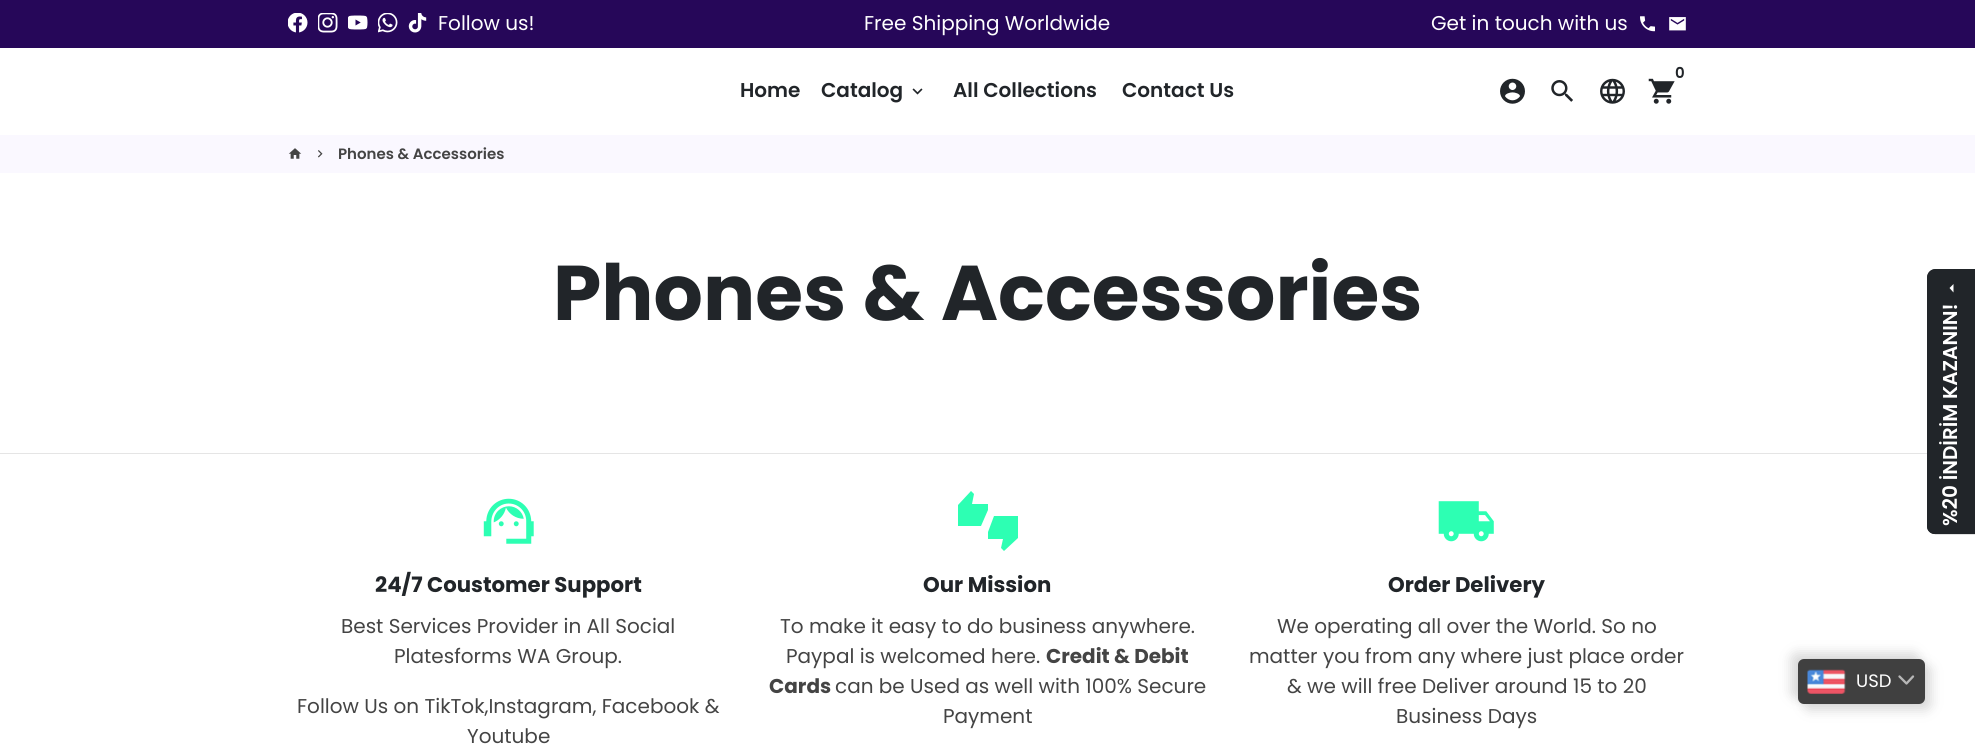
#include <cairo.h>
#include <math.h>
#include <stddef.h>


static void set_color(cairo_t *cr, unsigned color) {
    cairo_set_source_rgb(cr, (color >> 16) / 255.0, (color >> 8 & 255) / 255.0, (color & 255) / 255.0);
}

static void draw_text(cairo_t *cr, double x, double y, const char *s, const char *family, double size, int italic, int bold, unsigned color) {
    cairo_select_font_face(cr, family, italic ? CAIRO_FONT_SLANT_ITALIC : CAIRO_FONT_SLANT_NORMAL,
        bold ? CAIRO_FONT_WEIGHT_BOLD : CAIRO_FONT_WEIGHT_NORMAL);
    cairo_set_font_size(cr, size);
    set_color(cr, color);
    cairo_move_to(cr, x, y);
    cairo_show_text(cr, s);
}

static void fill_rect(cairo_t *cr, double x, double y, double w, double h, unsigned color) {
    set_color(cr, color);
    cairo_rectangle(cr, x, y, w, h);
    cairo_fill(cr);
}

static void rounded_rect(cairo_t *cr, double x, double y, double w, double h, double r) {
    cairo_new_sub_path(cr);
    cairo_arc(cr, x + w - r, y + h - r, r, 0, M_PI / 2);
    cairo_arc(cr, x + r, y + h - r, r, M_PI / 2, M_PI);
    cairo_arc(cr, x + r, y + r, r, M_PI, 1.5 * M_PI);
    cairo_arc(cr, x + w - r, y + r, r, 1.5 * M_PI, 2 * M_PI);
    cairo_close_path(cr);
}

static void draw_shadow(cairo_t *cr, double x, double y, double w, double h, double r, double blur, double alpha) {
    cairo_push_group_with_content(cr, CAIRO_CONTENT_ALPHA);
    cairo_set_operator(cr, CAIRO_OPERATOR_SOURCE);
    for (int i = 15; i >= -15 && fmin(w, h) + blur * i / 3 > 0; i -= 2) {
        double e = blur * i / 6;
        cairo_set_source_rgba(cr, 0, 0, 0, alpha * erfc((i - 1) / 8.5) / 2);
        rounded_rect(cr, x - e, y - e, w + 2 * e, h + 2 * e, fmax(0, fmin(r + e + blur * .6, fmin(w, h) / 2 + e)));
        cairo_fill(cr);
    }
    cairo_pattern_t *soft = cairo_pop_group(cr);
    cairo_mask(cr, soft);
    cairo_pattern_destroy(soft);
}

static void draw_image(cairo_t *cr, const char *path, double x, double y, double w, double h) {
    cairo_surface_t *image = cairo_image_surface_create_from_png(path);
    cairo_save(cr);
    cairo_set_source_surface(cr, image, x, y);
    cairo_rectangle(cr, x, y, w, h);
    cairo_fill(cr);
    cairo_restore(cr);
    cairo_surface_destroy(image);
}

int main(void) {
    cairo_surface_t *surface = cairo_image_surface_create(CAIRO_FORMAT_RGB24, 1975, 756);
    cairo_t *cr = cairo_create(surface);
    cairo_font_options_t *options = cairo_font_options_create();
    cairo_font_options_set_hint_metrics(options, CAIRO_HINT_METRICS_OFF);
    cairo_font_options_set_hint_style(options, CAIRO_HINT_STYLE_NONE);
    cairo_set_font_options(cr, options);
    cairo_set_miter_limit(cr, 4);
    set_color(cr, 0xFFFFFF);
    cairo_paint(cr);
    fill_rect(cr, 0, 0, 1975, 48, 0x260759);
    draw_image(cr, "assets/img1.png", 288, 13, 20, 20);
    draw_image(cr, "assets/img2.png", 318, 13, 20, 20);
    draw_image(cr, "assets/img3.png", 348, 15, 20, 15);
    draw_image(cr, "assets/img4.png", 378, 13, 20, 20);
    draw_image(cr, "assets/img5.png", 408, 13, 19, 20);
    draw_text(cr, 438, 30, "Follow us!", "Poppins", 20, 0, 0, 0xFFFFFF);
    draw_text(cr, 864, 30, "Free Shipping Worldwide", "Poppins", 20, 0, 0, 0xFFFFFF);
    draw_text(cr, 1431, 30, "Get in touch with us", "Poppins", 20, 0, 0, 0xFFFFFF);
    draw_image(cr, "assets/img6.png", 1640, 16, 15, 16);
    draw_image(cr, "assets/img7.png", 1669, 17, 17, 14);
    draw_text(cr, 1675, 78, "0", "Poppins SemiBold", 15, 0, 0, 0x212529);
    draw_image(cr, "assets/img8.png", 1648, 78, 27, 26);
    draw_image(cr, "assets/img9.png", 1500, 78, 25, 26);
    draw_image(cr, "assets/img10.png", 1551, 80, 22, 22);
    draw_image(cr, "assets/img11.png", 1600, 78, 25, 26);
    draw_text(cr, 740, 97, "Home", "Poppins SemiBold", 20, 0, 0, 0x212529);
    draw_text(cr, 821, 97, "Catalog", "Poppins SemiBold", 20, 0, 0, 0x212529);
    draw_image(cr, "assets/img12.png", 912, 88, 11, 7);
    draw_text(cr, 953, 97, "All Collections", "Poppins SemiBold", 20, 0, 0, 0x212529);
    draw_text(cr, 1122, 97, "Contact Us", "Poppins SemiBold", 20, 0, 0, 0x212529);
    fill_rect(cr, 0, 135, 1975, 38, 0xFAF8FF);
    draw_image(cr, "assets/img13.png", 288, 148, 14, 11);
    draw_image(cr, "assets/img14.png", 318, 150, 5, 8);
    draw_text(cr, 338, 159, "Phones & Accessories", "Poppins SemiBold", 15, 0, 0, 0x444444);
    draw_text(cr, 553, 320, "Phones & Accessories", "Poppins", 77.5, 0, 1, 0x212529);
    fill_rect(cr, 0, 453, 1927, 1, 0xE5E5E5);
    draw_image(cr, "assets/img15.png", 483, 498, 51, 46);
    draw_text(cr, 375, 592, "24/7 Coustomer Support", "Poppins", 21.25, 0, 1, 0x212529);
    draw_text(cr, 341, 633, "Best Services Provider in All Social", "Poppins", 20, 0, 0, 0x444444);
    draw_text(cr, 394, 663, "Platesforms WA Group.", "Poppins", 20, 0, 0, 0x444444);
    draw_text(cr, 297, 713, "Follow Us on TikTok,Instagram, Facebook &", "Poppins", 20, 0, 0, 0x444444);
    draw_text(cr, 467, 743, "Youtube", "Poppins", 20, 0, 0, 0x444444);
    set_color(cr, 0x2DFFB3);
    cairo_new_path(cr);
    cairo_move_to(cr, 988, 504);
    cairo_line_to(cr, 972, 504);
    cairo_line_to(cr, 974, 494);
    cairo_line_to(cr, 971, 491);
    cairo_line_to(cr, 958, 505);
    cairo_line_to(cr, 958, 526);
    cairo_line_to(cr, 981, 526);
    cairo_line_to(cr, 988, 510);
    cairo_close_path(cr);
    cairo_move_to(cr, 994, 516);
    cairo_line_to(cr, 988, 532);
    cairo_line_to(cr, 988, 539);
    cairo_line_to(cr, 1003, 539);
    cairo_line_to(cr, 1001, 548);
    cairo_line_to(cr, 1004, 551);
    cairo_line_to(cr, 1018, 538);
    cairo_line_to(cr, 1018, 516);
    cairo_close_path(cr);
    cairo_fill(cr);
    draw_text(cr, 923, 592, "Our Mission", "Poppins", 21.25, 0, 1, 0x212529);
    draw_text(cr, 780, 633, "To make it easy to do business anywhere.", "Poppins", 20, 0, 0, 0x444444);
    draw_text(cr, 786, 663, "Paypal is welcomed here.", "Poppins", 20, 0, 0, 0x444444);
    draw_text(cr, 1046, 663, "Credit & Debit", "Poppins", 20, 0, 1, 0x444444);
    draw_text(cr, 769, 693, "Cards", "Poppins", 20, 0, 1, 0x444444);
    draw_text(cr, 835, 693, "can be Used as well with 100% Secure", "Poppins", 20, 0, 0, 0x444444);
    draw_text(cr, 943, 723, "Payment", "Poppins", 20, 0, 0, 0x444444);
    draw_image(cr, "assets/img16.png", 1438, 501, 56, 41);
    draw_text(cr, 1388, 592, "Order Delivery", "Poppins", 21.25, 0, 1, 0x212529);
    draw_text(cr, 1277, 633, "We operating all over the World. So no", "Poppins", 20, 0, 0, 0x444444);
    draw_text(cr, 1249, 663, "matter you from any where just place order", "Poppins", 20, 0, 0, 0x444444);
    draw_text(cr, 1287, 693, "& we will free Deliver around 15 to 20", "Poppins", 20, 0, 0, 0x444444);
    draw_text(cr, 1396, 723, "Business Days", "Poppins", 20, 0, 0, 0x444444);
    set_color(cr, 0x212529);
    cairo_new_path(cr);
    cairo_move_to(cr, 1927, 527);
    cairo_line_to(cr, 1927, 277);
    cairo_curve_to(cr, 1927, 273, 1931, 269, 1935, 269);
    cairo_line_to(cr, 1975, 269);
    cairo_line_to(cr, 1975, 534);
    cairo_line_to(cr, 1935, 534);
    cairo_curve_to(cr, 1931, 534, 1927, 531, 1927, 527);
    cairo_close_path(cr);
    cairo_fill(cr);
    cairo_new_path(cr);
    cairo_move_to(cr, 1928, 527);
    cairo_line_to(cr, 1928, 277);
    cairo_curve_to(cr, 1928, 273, 1931, 270, 1935, 270);
    cairo_line_to(cr, 1974.5, 270);
    cairo_line_to(cr, 1974.5, 533.5);
    cairo_line_to(cr, 1935, 533.5);
    cairo_curve_to(cr, 1931, 533.5, 1928, 530.5, 1928, 527);
    cairo_close_path(cr);
    cairo_set_line_width(cr, 1.2);
    cairo_stroke(cr);
    set_color(cr, 0xFFFFFF);
    cairo_new_path(cr);
    cairo_move_to(cr, 1953.5, 292.5);
    cairo_line_to(cr, 1949.5, 288);
    cairo_line_to(cr, 1953.5, 284);
    cairo_close_path(cr);
    cairo_fill(cr);
    cairo_save(cr);
    cairo_translate(cr, 1957, 526);
    cairo_rotate(cr, -90 * M_PI / 180);
    draw_text(cr, 0, 0, "%20 İNDİRİM KAZANIN!", "Poppins SemiBold", 20, 0, 0, 0xFFFFFF);
    cairo_restore(cr);
    set_color(cr, 0x616161);
    draw_shadow(cr, 1791, 653, 128, 45, 6, 6, 0.24);
    draw_shadow(cr, 1804, 665, 127, 45, 6, 6, 0.24);
    set_color(cr, 0x404040);
    rounded_rect(cr, 1798, 659, 127, 45, 6);
    cairo_fill(cr);
    draw_image(cr, "assets/img17.png", 1807, 669, 39, 25);
    draw_text(cr, 1856, 687, "USD", "Poppins", 18, 0, 0, 0xFFFFFF);
    cairo_new_path(cr);
    cairo_move_to(cr, 1899.5, 676.5);
    cairo_line_to(cr, 1906.5, 683.5);
    cairo_line_to(cr, 1913, 676.5);
    set_color(cr, 0xB7B7B7);
    cairo_set_line_width(cr, 2.3);
    cairo_set_line_cap(cr, CAIRO_LINE_CAP_ROUND);
    cairo_set_line_join(cr, CAIRO_LINE_JOIN_ROUND);
    cairo_stroke(cr);
    cairo_surface_write_to_png(surface, "output.png");
    cairo_font_options_destroy(options);
    cairo_destroy(cr);
    cairo_surface_destroy(surface);
    return 0;
}
